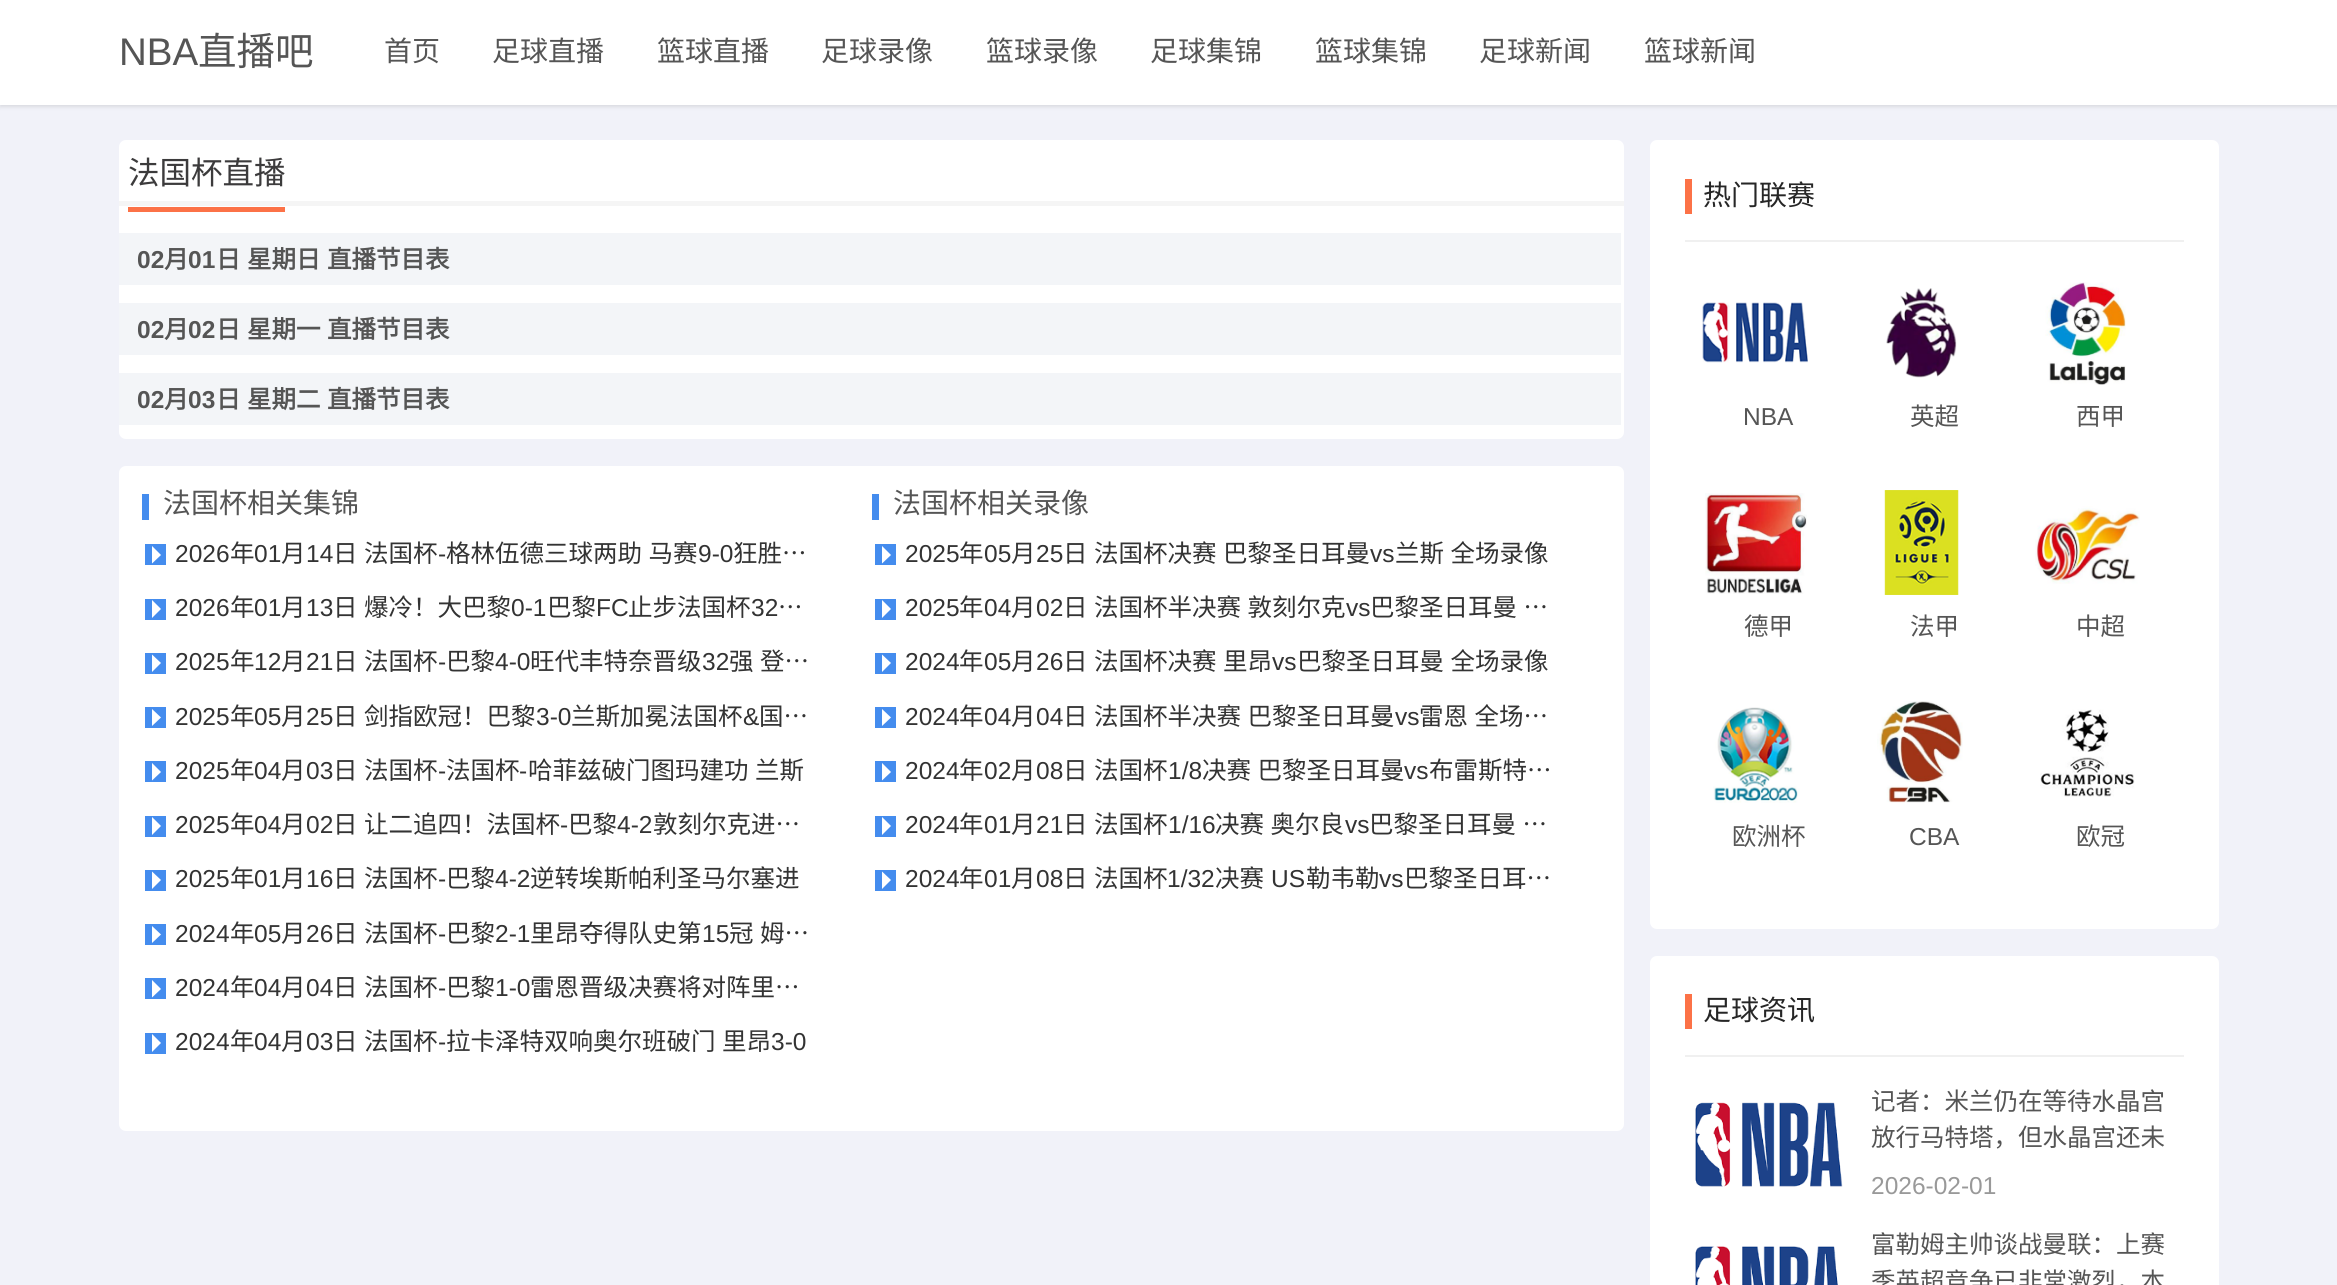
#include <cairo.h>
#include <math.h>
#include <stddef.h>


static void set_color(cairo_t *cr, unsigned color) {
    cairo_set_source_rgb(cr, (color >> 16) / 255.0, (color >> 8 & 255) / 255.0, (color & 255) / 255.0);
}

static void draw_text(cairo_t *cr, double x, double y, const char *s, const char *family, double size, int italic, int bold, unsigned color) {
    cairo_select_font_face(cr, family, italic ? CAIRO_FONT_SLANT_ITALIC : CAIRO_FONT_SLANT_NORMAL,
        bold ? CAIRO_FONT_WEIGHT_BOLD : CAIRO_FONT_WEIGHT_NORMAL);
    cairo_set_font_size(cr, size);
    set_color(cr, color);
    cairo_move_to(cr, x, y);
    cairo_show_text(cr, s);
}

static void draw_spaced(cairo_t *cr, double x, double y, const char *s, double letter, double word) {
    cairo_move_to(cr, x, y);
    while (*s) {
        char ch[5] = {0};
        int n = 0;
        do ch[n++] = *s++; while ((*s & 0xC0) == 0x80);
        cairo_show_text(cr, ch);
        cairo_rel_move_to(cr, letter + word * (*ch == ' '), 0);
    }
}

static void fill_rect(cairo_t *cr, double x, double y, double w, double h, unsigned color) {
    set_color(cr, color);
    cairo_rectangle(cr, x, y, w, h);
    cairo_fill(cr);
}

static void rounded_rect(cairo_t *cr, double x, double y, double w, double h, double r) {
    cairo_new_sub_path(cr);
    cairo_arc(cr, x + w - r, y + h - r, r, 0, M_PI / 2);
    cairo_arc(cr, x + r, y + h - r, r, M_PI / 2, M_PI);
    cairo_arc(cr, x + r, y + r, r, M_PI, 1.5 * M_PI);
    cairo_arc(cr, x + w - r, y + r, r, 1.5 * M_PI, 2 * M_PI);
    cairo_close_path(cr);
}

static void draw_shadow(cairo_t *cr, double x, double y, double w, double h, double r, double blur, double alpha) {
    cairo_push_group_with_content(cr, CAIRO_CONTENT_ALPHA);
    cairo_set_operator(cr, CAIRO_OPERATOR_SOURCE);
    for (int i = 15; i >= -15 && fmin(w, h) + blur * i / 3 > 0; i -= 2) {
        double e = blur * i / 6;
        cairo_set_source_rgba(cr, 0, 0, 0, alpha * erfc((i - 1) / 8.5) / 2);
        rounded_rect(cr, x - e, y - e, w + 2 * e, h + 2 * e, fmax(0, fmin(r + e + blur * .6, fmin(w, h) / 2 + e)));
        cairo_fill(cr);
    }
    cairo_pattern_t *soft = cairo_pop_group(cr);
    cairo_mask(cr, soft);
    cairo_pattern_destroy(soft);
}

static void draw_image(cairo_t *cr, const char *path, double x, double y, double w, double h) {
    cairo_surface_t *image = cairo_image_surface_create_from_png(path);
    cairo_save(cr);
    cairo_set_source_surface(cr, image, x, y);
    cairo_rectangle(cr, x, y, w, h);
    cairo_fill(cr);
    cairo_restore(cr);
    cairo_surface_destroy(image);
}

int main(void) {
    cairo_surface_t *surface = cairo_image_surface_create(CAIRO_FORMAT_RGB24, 2337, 1285);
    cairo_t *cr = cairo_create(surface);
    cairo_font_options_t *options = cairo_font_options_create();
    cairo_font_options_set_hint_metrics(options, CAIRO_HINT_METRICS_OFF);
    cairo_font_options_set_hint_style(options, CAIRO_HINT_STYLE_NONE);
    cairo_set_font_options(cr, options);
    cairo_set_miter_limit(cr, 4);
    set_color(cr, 0xF1F2F9);
    cairo_paint(cr);
    set_color(cr, 0x000000);
    draw_shadow(cr, 0, 2, 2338, 105, 0, 2, 0.1);
    fill_rect(cr, 0, 0, 2337, 105, 0xFFFFFF);
    draw_text(cr, 119, 65, "NBA", "Liberation Sans", 38.5, 0, 0, 0x555555);
    draw_text(cr, 198, 65, "直播吧", "Noto Sans CJK SC", 38.5, 0, 0, 0x555555);
    draw_text(cr, 384, 61, "首页", "Noto Sans CJK SC", 28, 0, 0, 0x555555);
    draw_text(cr, 492, 61, "足球直播", "Noto Sans CJK SC", 28, 0, 0, 0x555555);
    draw_text(cr, 657, 61, "篮球直播", "Noto Sans CJK SC", 28, 0, 0, 0x555555);
    draw_text(cr, 821, 61, "足球录像", "Noto Sans CJK SC", 28, 0, 0, 0x555555);
    draw_text(cr, 986, 61, "篮球录像", "Noto Sans CJK SC", 28, 0, 0, 0x555555);
    draw_text(cr, 1150, 61, "足球集锦", "Noto Sans CJK SC", 28, 0, 0, 0x555555);
    draw_text(cr, 1315, 61, "篮球集锦", "Noto Sans CJK SC", 28, 0, 0, 0x555555);
    draw_text(cr, 1479, 61, "足球新闻", "Noto Sans CJK SC", 28, 0, 0, 0x555555);
    draw_text(cr, 1644, 61, "篮球新闻", "Noto Sans CJK SC", 28, 0, 0, 0x555555);
    set_color(cr, 0xFFFFFF);
    rounded_rect(cr, 119, 140, 1505, 299, 7);
    cairo_fill(cr);
    fill_rect(cr, 119, 201, 1505, 5, 0xF5F5F5);
    fill_rect(cr, 128, 207, 157, 5, 0xFC7247);
    draw_text(cr, 128, 184, "法国杯直播", "Noto Sans CJK SC", 31.5, 0, 0, 0x3C3B3C);
    fill_rect(cr, 119, 233, 1502, 52, 0xF3F5F8);
    draw_text(cr, 137, 268, "02", "Liberation Sans", 24.5, 0, 1, 0x555555);
    draw_text(cr, 164, 268, "月", "Noto Sans CJK SC", 24.5, 0, 1, 0x555555);
    draw_text(cr, 188, 268, "01", "Liberation Sans", 24.5, 0, 1, 0x555555);
    cairo_select_font_face(cr, "Noto Sans CJK SC", CAIRO_FONT_SLANT_NORMAL, CAIRO_FONT_WEIGHT_BOLD);
    draw_spaced(cr, 216, 268, "日 星期日", 0, 1);
    draw_text(cr, 327, 268, "直播节目表", "Noto Sans CJK SC", 24.5, 0, 1, 0x555555);
    fill_rect(cr, 119, 303, 1502, 52, 0xF3F5F8);
    draw_text(cr, 137, 338, "02", "Liberation Sans", 24.5, 0, 1, 0x555555);
    draw_text(cr, 164, 338, "月", "Noto Sans CJK SC", 24.5, 0, 1, 0x555555);
    draw_text(cr, 188, 338, "02", "Liberation Sans", 24.5, 0, 1, 0x555555);
    cairo_select_font_face(cr, "Noto Sans CJK SC", CAIRO_FONT_SLANT_NORMAL, CAIRO_FONT_WEIGHT_BOLD);
    draw_spaced(cr, 216, 338, "日 星期一", 0, 1);
    draw_text(cr, 327, 338, "直播节目表", "Noto Sans CJK SC", 24.5, 0, 1, 0x555555);
    fill_rect(cr, 119, 373, 1502, 52, 0xF3F5F8);
    draw_text(cr, 137, 408, "02", "Liberation Sans", 24.5, 0, 1, 0x555555);
    draw_text(cr, 164, 408, "月", "Noto Sans CJK SC", 24.5, 0, 1, 0x555555);
    draw_text(cr, 188, 408, "03", "Liberation Sans", 24.5, 0, 1, 0x555555);
    cairo_select_font_face(cr, "Noto Sans CJK SC", CAIRO_FONT_SLANT_NORMAL, CAIRO_FONT_WEIGHT_BOLD);
    draw_spaced(cr, 216, 408, "日 星期二", 0, 1);
    draw_text(cr, 327, 408, "直播节目表", "Noto Sans CJK SC", 24.5, 0, 1, 0x555555);
    set_color(cr, 0xFFFFFF);
    rounded_rect(cr, 119, 466, 1505, 665, 7);
    cairo_fill(cr);
    fill_rect(cr, 142, 494, 7, 26, 0x448CEE);
    draw_text(cr, 163, 513, "法国杯相关集锦", "Noto Sans CJK SC", 28, 0, 0, 0x555555);
    fill_rect(cr, 145, 544, 21, 21, 0x448CEE);
    draw_text(cr, 175, 562, "2026", "Liberation Sans", 24.5, 0, 0, 0x333333);
    draw_text(cr, 230, 562, "年", "Noto Sans CJK SC", 24.5, 0, 0, 0x333333);
    draw_text(cr, 254, 562, "01", "Liberation Sans", 24.5, 0, 0, 0x333333);
    draw_text(cr, 281, 562, "月", "Noto Sans CJK SC", 24.5, 0, 0, 0x333333);
    draw_text(cr, 306, 562, "14", "Liberation Sans", 24.5, 0, 0, 0x333333);
    cairo_select_font_face(cr, "Noto Sans CJK SC", CAIRO_FONT_SLANT_NORMAL, CAIRO_FONT_WEIGHT_NORMAL);
    draw_spaced(cr, 333, 562, "日 法国杯", 0, 1);
    draw_spaced(cr, 446, 562, "格林伍德三球两助 马赛", 0, 1);
    draw_text(cr, 698, 562, "9-0", "Liberation Sans", 24.5, 0, 0, 0x333333);
    draw_text(cr, 733, 562, "狂胜…", "Noto Sans CJK SC", 24.5, 0, 0, 0x333333);
    set_color(cr, 0xFFFFFF);
    cairo_new_path(cr);
    cairo_move_to(cr, 152, 563.5);
    cairo_line_to(cr, 152, 546);
    cairo_line_to(cr, 161, 555);
    cairo_close_path(cr);
    cairo_fill(cr);
    draw_text(cr, 438, 562, "-", "Liberation Sans", 24.5, 0, 0, 0x333333);
    fill_rect(cr, 145, 599, 21, 21, 0x448CEE);
    draw_text(cr, 175, 616, "2026", "Liberation Sans", 24.5, 0, 0, 0x333333);
    draw_text(cr, 230, 616, "年", "Noto Sans CJK SC", 24.5, 0, 0, 0x333333);
    draw_text(cr, 254, 616, "01", "Liberation Sans", 24.5, 0, 0, 0x333333);
    draw_text(cr, 281, 616, "月", "Noto Sans CJK SC", 24.5, 0, 0, 0x333333);
    draw_text(cr, 306, 616, "13", "Liberation Sans", 24.5, 0, 0, 0x333333);
    cairo_select_font_face(cr, "Noto Sans CJK SC", CAIRO_FONT_SLANT_NORMAL, CAIRO_FONT_WEIGHT_NORMAL);
    draw_spaced(cr, 333, 616, "日 爆冷！大巴黎", 0, 1);
    draw_text(cr, 511, 616, "0-1", "Liberation Sans", 24.5, 0, 0, 0x333333);
    draw_text(cr, 547, 616, "巴黎", "Noto Sans CJK SC", 24.5, 0, 0, 0x333333);
    draw_text(cr, 596, 616, "FC", "Liberation Sans", 24.5, 0, 0, 0x333333);
    draw_text(cr, 628, 616, "止步法国杯", "Noto Sans CJK SC", 24.5, 0, 0, 0x333333);
    draw_text(cr, 751, 616, "32", "Liberation Sans", 24.5, 0, 0, 0x333333);
    set_color(cr, 0xFFFFFF);
    cairo_new_path(cr);
    cairo_move_to(cr, 152, 618);
    cairo_line_to(cr, 152, 600);
    cairo_line_to(cr, 161, 609);
    cairo_close_path(cr);
    cairo_fill(cr);
    cairo_select_font_face(cr, "Noto Sans CJK SC", CAIRO_FONT_SLANT_NORMAL, CAIRO_FONT_WEIGHT_NORMAL);
    set_color(cr, 0x333333);
    draw_spaced(cr, 778, 616, "…", 0, 1);
    fill_rect(cr, 145, 653, 21, 21, 0x448CEE);
    draw_text(cr, 175, 670, "2025", "Liberation Sans", 24.5, 0, 0, 0x333333);
    draw_text(cr, 230, 670, "年", "Noto Sans CJK SC", 24.5, 0, 0, 0x333333);
    draw_text(cr, 254, 670, "12", "Liberation Sans", 24.5, 0, 0, 0x333333);
    draw_text(cr, 281, 670, "月", "Noto Sans CJK SC", 24.5, 0, 0, 0x333333);
    draw_text(cr, 306, 670, "21", "Liberation Sans", 24.5, 0, 0, 0x333333);
    cairo_select_font_face(cr, "Noto Sans CJK SC", CAIRO_FONT_SLANT_NORMAL, CAIRO_FONT_WEIGHT_NORMAL);
    draw_spaced(cr, 333, 670, "日 法国杯", 0, 1);
    draw_text(cr, 446, 670, "巴黎", "Noto Sans CJK SC", 24.5, 0, 0, 0x333333);
    draw_text(cr, 495, 670, "4-0", "Liberation Sans", 24.5, 0, 0, 0x333333);
    draw_text(cr, 530, 670, "旺代丰特奈晋级", "Noto Sans CJK SC", 24.5, 0, 0, 0x333333);
    draw_text(cr, 702, 670, "32", "Liberation Sans", 24.5, 0, 0, 0x333333);
    cairo_select_font_face(cr, "Noto Sans CJK SC", CAIRO_FONT_SLANT_NORMAL, CAIRO_FONT_WEIGHT_NORMAL);
    draw_spaced(cr, 729, 670, "强 登…", 0, 1);
    set_color(cr, 0xFFFFFF);
    cairo_new_path(cr);
    cairo_move_to(cr, 152, 672);
    cairo_line_to(cr, 152, 654.5);
    cairo_line_to(cr, 161, 663);
    cairo_close_path(cr);
    cairo_fill(cr);
    draw_text(cr, 438, 670, "-", "Liberation Sans", 24.5, 0, 0, 0x333333);
    fill_rect(cr, 145, 707, 21, 21, 0x448CEE);
    draw_text(cr, 175, 725, "2025", "Liberation Sans", 24.5, 0, 0, 0x333333);
    draw_text(cr, 230, 725, "年", "Noto Sans CJK SC", 24.5, 0, 0, 0x333333);
    draw_text(cr, 254, 725, "05", "Liberation Sans", 24.5, 0, 0, 0x333333);
    draw_text(cr, 281, 725, "月", "Noto Sans CJK SC", 24.5, 0, 0, 0x333333);
    draw_text(cr, 306, 725, "25", "Liberation Sans", 24.5, 0, 0, 0x333333);
    cairo_select_font_face(cr, "Noto Sans CJK SC", CAIRO_FONT_SLANT_NORMAL, CAIRO_FONT_WEIGHT_NORMAL);
    draw_spaced(cr, 333, 725, "日 剑指欧冠！巴黎", 0, 1);
    draw_text(cr, 536, 725, "3-0", "Liberation Sans", 24.5, 0, 0, 0x333333);
    draw_text(cr, 571, 725, "兰斯加冕法国杯", "Noto Sans CJK SC", 24.5, 0, 0, 0x333333);
    draw_text(cr, 743, 725, "&", "Liberation Sans", 24.5, 0, 0, 0x333333);
    draw_text(cr, 759, 725, "国…", "Noto Sans CJK SC", 24.5, 0, 0, 0x333333);
    set_color(cr, 0xFFFFFF);
    cairo_new_path(cr);
    cairo_move_to(cr, 152, 726);
    cairo_line_to(cr, 152, 709);
    cairo_line_to(cr, 161, 717.5);
    cairo_close_path(cr);
    cairo_fill(cr);
    fill_rect(cr, 145, 761, 21, 21, 0x448CEE);
    draw_text(cr, 175, 779, "2025", "Liberation Sans", 24.5, 0, 0, 0x333333);
    draw_text(cr, 230, 779, "年", "Noto Sans CJK SC", 24.5, 0, 0, 0x333333);
    draw_text(cr, 254, 779, "04", "Liberation Sans", 24.5, 0, 0, 0x333333);
    draw_text(cr, 281, 779, "月", "Noto Sans CJK SC", 24.5, 0, 0, 0x333333);
    draw_text(cr, 306, 779, "03", "Liberation Sans", 24.5, 0, 0, 0x333333);
    cairo_select_font_face(cr, "Noto Sans CJK SC", CAIRO_FONT_SLANT_NORMAL, CAIRO_FONT_WEIGHT_NORMAL);
    draw_spaced(cr, 333, 779, "日 法国杯", 0, 1);
    draw_text(cr, 446, 779, "法国杯", "Noto Sans CJK SC", 24.5, 0, 0, 0x333333);
    draw_spaced(cr, 528, 779, "哈菲兹破门图玛建功 兰斯", 0, 1);
    set_color(cr, 0xFFFFFF);
    cairo_new_path(cr);
    cairo_move_to(cr, 152, 780.5);
    cairo_line_to(cr, 152, 763);
    cairo_line_to(cr, 161, 772);
    cairo_close_path(cr);
    cairo_fill(cr);
    draw_text(cr, 438, 779, "-", "Liberation Sans", 24.5, 0, 0, 0x333333);
    draw_text(cr, 519, 779, "-", "Liberation Sans", 24.5, 0, 0, 0x333333);
    fill_rect(cr, 145, 816, 21, 21, 0x448CEE);
    draw_text(cr, 175, 833, "2025", "Liberation Sans", 24.5, 0, 0, 0x333333);
    draw_text(cr, 230, 833, "年", "Noto Sans CJK SC", 24.5, 0, 0, 0x333333);
    draw_text(cr, 254, 833, "04", "Liberation Sans", 24.5, 0, 0, 0x333333);
    draw_text(cr, 281, 833, "月", "Noto Sans CJK SC", 24.5, 0, 0, 0x333333);
    draw_text(cr, 306, 833, "02", "Liberation Sans", 24.5, 0, 0, 0x333333);
    cairo_select_font_face(cr, "Noto Sans CJK SC", CAIRO_FONT_SLANT_NORMAL, CAIRO_FONT_WEIGHT_NORMAL);
    draw_spaced(cr, 333, 833, "日 让二追四！法国杯", 0, 1);
    draw_text(cr, 568, 833, "巴黎", "Noto Sans CJK SC", 24.5, 0, 0, 0x333333);
    draw_text(cr, 617, 833, "4-2", "Liberation Sans", 24.5, 0, 0, 0x333333);
    cairo_select_font_face(cr, "Noto Sans CJK SC", CAIRO_FONT_SLANT_NORMAL, CAIRO_FONT_WEIGHT_NORMAL);
    draw_spaced(cr, 653, 833, "敦刻尔克进…", 0, 1);
    set_color(cr, 0xFFFFFF);
    cairo_new_path(cr);
    cairo_move_to(cr, 152, 835);
    cairo_line_to(cr, 152, 817);
    cairo_line_to(cr, 161, 826);
    cairo_close_path(cr);
    cairo_fill(cr);
    draw_text(cr, 560, 833, "-", "Liberation Sans", 24.5, 0, 0, 0x333333);
    fill_rect(cr, 145, 870, 21, 21, 0x448CEE);
    draw_text(cr, 175, 887, "2025", "Liberation Sans", 24.5, 0, 0, 0x333333);
    draw_text(cr, 230, 887, "年", "Noto Sans CJK SC", 24.5, 0, 0, 0x333333);
    draw_text(cr, 254, 887, "01", "Liberation Sans", 24.5, 0, 0, 0x333333);
    draw_text(cr, 281, 887, "月", "Noto Sans CJK SC", 24.5, 0, 0, 0x333333);
    draw_text(cr, 306, 887, "16", "Liberation Sans", 24.5, 0, 0, 0x333333);
    cairo_select_font_face(cr, "Noto Sans CJK SC", CAIRO_FONT_SLANT_NORMAL, CAIRO_FONT_WEIGHT_NORMAL);
    draw_spaced(cr, 333, 887, "日 法国杯", 0, 1);
    draw_text(cr, 446, 887, "巴黎", "Noto Sans CJK SC", 24.5, 0, 0, 0x333333);
    draw_text(cr, 495, 887, "4-2", "Liberation Sans", 24.5, 0, 0, 0x333333);
    draw_text(cr, 530, 887, "逆转埃斯帕利圣马尔塞进", "Noto Sans CJK SC", 24.5, 0, 0, 0x333333);
    set_color(cr, 0xFFFFFF);
    cairo_new_path(cr);
    cairo_move_to(cr, 152, 889);
    cairo_line_to(cr, 152, 871.5);
    cairo_line_to(cr, 161, 880);
    cairo_close_path(cr);
    cairo_fill(cr);
    draw_text(cr, 438, 887, "-", "Liberation Sans", 24.5, 0, 0, 0x333333);
    fill_rect(cr, 145, 924, 21, 21, 0x448CEE);
    draw_text(cr, 175, 942, "2024", "Liberation Sans", 24.5, 0, 0, 0x333333);
    draw_text(cr, 230, 942, "年", "Noto Sans CJK SC", 24.5, 0, 0, 0x333333);
    draw_text(cr, 254, 942, "05", "Liberation Sans", 24.5, 0, 0, 0x333333);
    draw_text(cr, 281, 942, "月", "Noto Sans CJK SC", 24.5, 0, 0, 0x333333);
    draw_text(cr, 306, 942, "26", "Liberation Sans", 24.5, 0, 0, 0x333333);
    cairo_select_font_face(cr, "Noto Sans CJK SC", CAIRO_FONT_SLANT_NORMAL, CAIRO_FONT_WEIGHT_NORMAL);
    draw_spaced(cr, 333, 942, "日 法国杯", 0, 1);
    draw_text(cr, 446, 942, "巴黎", "Noto Sans CJK SC", 24.5, 0, 0, 0x333333);
    draw_text(cr, 495, 942, "2-1", "Liberation Sans", 24.5, 0, 0, 0x333333);
    draw_text(cr, 530, 942, "里昂夺得队史第", "Noto Sans CJK SC", 24.5, 0, 0, 0x333333);
    draw_text(cr, 702, 942, "15", "Liberation Sans", 24.5, 0, 0, 0x333333);
    cairo_select_font_face(cr, "Noto Sans CJK SC", CAIRO_FONT_SLANT_NORMAL, CAIRO_FONT_WEIGHT_NORMAL);
    draw_spaced(cr, 729, 942, "冠 姆…", 0, 1);
    set_color(cr, 0xFFFFFF);
    cairo_new_path(cr);
    cairo_move_to(cr, 152, 943);
    cairo_line_to(cr, 152, 926);
    cairo_line_to(cr, 161, 934.5);
    cairo_close_path(cr);
    cairo_fill(cr);
    draw_text(cr, 438, 942, "-", "Liberation Sans", 24.5, 0, 0, 0x333333);
    fill_rect(cr, 145, 978, 21, 21, 0x448CEE);
    draw_text(cr, 175, 996, "2024", "Liberation Sans", 24.5, 0, 0, 0x333333);
    draw_text(cr, 230, 996, "年", "Noto Sans CJK SC", 24.5, 0, 0, 0x333333);
    draw_text(cr, 254, 996, "04", "Liberation Sans", 24.5, 0, 0, 0x333333);
    draw_text(cr, 281, 996, "月", "Noto Sans CJK SC", 24.5, 0, 0, 0x333333);
    draw_text(cr, 306, 996, "04", "Liberation Sans", 24.5, 0, 0, 0x333333);
    cairo_select_font_face(cr, "Noto Sans CJK SC", CAIRO_FONT_SLANT_NORMAL, CAIRO_FONT_WEIGHT_NORMAL);
    draw_spaced(cr, 333, 996, "日 法国杯", 0, 1);
    draw_text(cr, 446, 996, "巴黎", "Noto Sans CJK SC", 24.5, 0, 0, 0x333333);
    draw_text(cr, 495, 996, "1-0", "Liberation Sans", 24.5, 0, 0, 0x333333);
    cairo_select_font_face(cr, "Noto Sans CJK SC", CAIRO_FONT_SLANT_NORMAL, CAIRO_FONT_WEIGHT_NORMAL);
    draw_spaced(cr, 530, 996, "雷恩晋级决赛将对阵里…", 0, 1);
    set_color(cr, 0xFFFFFF);
    cairo_new_path(cr);
    cairo_move_to(cr, 152, 997.5);
    cairo_line_to(cr, 152, 980);
    cairo_line_to(cr, 161, 989);
    cairo_close_path(cr);
    cairo_fill(cr);
    draw_text(cr, 438, 996, "-", "Liberation Sans", 24.5, 0, 0, 0x333333);
    fill_rect(cr, 145, 1033, 21, 21, 0x448CEE);
    draw_text(cr, 175, 1050, "2024", "Liberation Sans", 24.5, 0, 0, 0x333333);
    draw_text(cr, 230, 1050, "年", "Noto Sans CJK SC", 24.5, 0, 0, 0x333333);
    draw_text(cr, 254, 1050, "04", "Liberation Sans", 24.5, 0, 0, 0x333333);
    draw_text(cr, 281, 1050, "月", "Noto Sans CJK SC", 24.5, 0, 0, 0x333333);
    draw_text(cr, 306, 1050, "03", "Liberation Sans", 24.5, 0, 0, 0x333333);
    cairo_select_font_face(cr, "Noto Sans CJK SC", CAIRO_FONT_SLANT_NORMAL, CAIRO_FONT_WEIGHT_NORMAL);
    draw_spaced(cr, 333, 1050, "日 法国杯", 0, 1);
    draw_spaced(cr, 446, 1050, "拉卡泽特双响奥尔班破门 里昂", 0, 1);
    draw_text(cr, 771, 1050, "3-0", "Liberation Sans", 24.5, 0, 0, 0x333333);
    set_color(cr, 0xFFFFFF);
    cairo_new_path(cr);
    cairo_move_to(cr, 152, 1052);
    cairo_line_to(cr, 152, 1034);
    cairo_line_to(cr, 161, 1043);
    cairo_close_path(cr);
    cairo_fill(cr);
    draw_text(cr, 438, 1050, "-", "Liberation Sans", 24.5, 0, 0, 0x333333);
    fill_rect(cr, 872, 494, 7, 26, 0x448CEE);
    draw_text(cr, 893, 513, "法国杯相关录像", "Noto Sans CJK SC", 28, 0, 0, 0x555555);
    fill_rect(cr, 875, 544, 21, 21, 0x448CEE);
    draw_text(cr, 905, 562, "2025", "Liberation Sans", 24.5, 0, 0, 0x333333);
    draw_text(cr, 959, 562, "年", "Noto Sans CJK SC", 24.5, 0, 0, 0x333333);
    draw_text(cr, 984, 562, "05", "Liberation Sans", 24.5, 0, 0, 0x333333);
    draw_text(cr, 1011, 562, "月", "Noto Sans CJK SC", 24.5, 0, 0, 0x333333);
    draw_text(cr, 1036, 562, "25", "Liberation Sans", 24.5, 0, 0, 0x333333);
    cairo_select_font_face(cr, "Noto Sans CJK SC", CAIRO_FONT_SLANT_NORMAL, CAIRO_FONT_WEIGHT_NORMAL);
    draw_spaced(cr, 1063, 562, "日 法国杯决赛 巴黎圣日耳曼", 0, 1);
    draw_spaced(cr, 1395, 562, "兰斯 全场录像", 0, 1);
    set_color(cr, 0xFFFFFF);
    cairo_new_path(cr);
    cairo_move_to(cr, 882, 563.5);
    cairo_line_to(cr, 882, 546);
    cairo_line_to(cr, 891, 555);
    cairo_close_path(cr);
    cairo_fill(cr);
    draw_text(cr, 1370, 562, "vs", "Liberation Sans", 24.5, 0, 0, 0x333333);
    fill_rect(cr, 875, 599, 21, 21, 0x448CEE);
    draw_text(cr, 905, 616, "2025", "Liberation Sans", 24.5, 0, 0, 0x333333);
    draw_text(cr, 959, 616, "年", "Noto Sans CJK SC", 24.5, 0, 0, 0x333333);
    draw_text(cr, 984, 616, "04", "Liberation Sans", 24.5, 0, 0, 0x333333);
    draw_text(cr, 1011, 616, "月", "Noto Sans CJK SC", 24.5, 0, 0, 0x333333);
    draw_text(cr, 1036, 616, "02", "Liberation Sans", 24.5, 0, 0, 0x333333);
    cairo_select_font_face(cr, "Noto Sans CJK SC", CAIRO_FONT_SLANT_NORMAL, CAIRO_FONT_WEIGHT_NORMAL);
    draw_spaced(cr, 1063, 616, "日 法国杯半决赛 敦刻尔克", 0, 1);
    draw_spaced(cr, 1370, 616, "巴黎圣日耳曼 …", 0, 1);
    set_color(cr, 0xFFFFFF);
    cairo_new_path(cr);
    cairo_move_to(cr, 882, 618);
    cairo_line_to(cr, 882, 600);
    cairo_line_to(cr, 891, 609);
    cairo_close_path(cr);
    cairo_fill(cr);
    draw_text(cr, 1346, 616, "vs", "Liberation Sans", 24.5, 0, 0, 0x333333);
    fill_rect(cr, 875, 653, 21, 21, 0x448CEE);
    draw_text(cr, 905, 670, "2024", "Liberation Sans", 24.5, 0, 0, 0x333333);
    draw_text(cr, 959, 670, "年", "Noto Sans CJK SC", 24.5, 0, 0, 0x333333);
    draw_text(cr, 984, 670, "05", "Liberation Sans", 24.5, 0, 0, 0x333333);
    draw_text(cr, 1011, 670, "月", "Noto Sans CJK SC", 24.5, 0, 0, 0x333333);
    draw_text(cr, 1036, 670, "26", "Liberation Sans", 24.5, 0, 0, 0x333333);
    cairo_select_font_face(cr, "Noto Sans CJK SC", CAIRO_FONT_SLANT_NORMAL, CAIRO_FONT_WEIGHT_NORMAL);
    draw_spaced(cr, 1063, 670, "日 法国杯决赛 里昂", 0, 1);
    draw_spaced(cr, 1297, 670, "巴黎圣日耳曼 全场录像", 0, 1);
    set_color(cr, 0xFFFFFF);
    cairo_new_path(cr);
    cairo_move_to(cr, 882, 672);
    cairo_line_to(cr, 882, 654.5);
    cairo_line_to(cr, 891, 663);
    cairo_close_path(cr);
    cairo_fill(cr);
    draw_text(cr, 1272, 670, "vs", "Liberation Sans", 24.5, 0, 0, 0x333333);
    fill_rect(cr, 875, 707, 21, 21, 0x448CEE);
    draw_text(cr, 905, 725, "2024", "Liberation Sans", 24.5, 0, 0, 0x333333);
    draw_text(cr, 959, 725, "年", "Noto Sans CJK SC", 24.5, 0, 0, 0x333333);
    draw_text(cr, 984, 725, "04", "Liberation Sans", 24.5, 0, 0, 0x333333);
    draw_text(cr, 1011, 725, "月", "Noto Sans CJK SC", 24.5, 0, 0, 0x333333);
    draw_text(cr, 1036, 725, "04", "Liberation Sans", 24.5, 0, 0, 0x333333);
    cairo_select_font_face(cr, "Noto Sans CJK SC", CAIRO_FONT_SLANT_NORMAL, CAIRO_FONT_WEIGHT_NORMAL);
    draw_spaced(cr, 1063, 725, "日 法国杯半决赛 巴黎圣日耳曼", 0, 1);
    draw_spaced(cr, 1419, 725, "雷恩 全场…", 0, 1);
    set_color(cr, 0xFFFFFF);
    cairo_new_path(cr);
    cairo_move_to(cr, 882, 726);
    cairo_line_to(cr, 882, 709);
    cairo_line_to(cr, 891, 717.5);
    cairo_close_path(cr);
    cairo_fill(cr);
    draw_text(cr, 1395, 725, "vs", "Liberation Sans", 24.5, 0, 0, 0x333333);
    fill_rect(cr, 875, 761, 21, 21, 0x448CEE);
    draw_text(cr, 905, 779, "2024", "Liberation Sans", 24.5, 0, 0, 0x333333);
    draw_text(cr, 959, 779, "年", "Noto Sans CJK SC", 24.5, 0, 0, 0x333333);
    draw_text(cr, 984, 779, "02", "Liberation Sans", 24.5, 0, 0, 0x333333);
    draw_text(cr, 1011, 779, "月", "Noto Sans CJK SC", 24.5, 0, 0, 0x333333);
    draw_text(cr, 1036, 779, "08", "Liberation Sans", 24.5, 0, 0, 0x333333);
    cairo_select_font_face(cr, "Noto Sans CJK SC", CAIRO_FONT_SLANT_NORMAL, CAIRO_FONT_WEIGHT_NORMAL);
    draw_spaced(cr, 1063, 779, "日 法国杯", 0, 1);
    draw_text(cr, 1168, 779, "1/8", "Liberation Sans", 24.5, 0, 0, 0x333333);
    cairo_select_font_face(cr, "Noto Sans CJK SC", CAIRO_FONT_SLANT_NORMAL, CAIRO_FONT_WEIGHT_NORMAL);
    draw_spaced(cr, 1202, 779, "决赛 巴黎圣日耳曼", 0, 1);
    draw_spaced(cr, 1429, 779, "布雷斯特…", 0, 1);
    set_color(cr, 0xFFFFFF);
    cairo_new_path(cr);
    cairo_move_to(cr, 882, 780.5);
    cairo_line_to(cr, 882, 763);
    cairo_line_to(cr, 891, 772);
    cairo_close_path(cr);
    cairo_fill(cr);
    draw_text(cr, 1404, 779, "vs", "Liberation Sans", 24.5, 0, 0, 0x333333);
    fill_rect(cr, 875, 816, 21, 21, 0x448CEE);
    draw_text(cr, 905, 833, "2024", "Liberation Sans", 24.5, 0, 0, 0x333333);
    draw_text(cr, 959, 833, "年", "Noto Sans CJK SC", 24.5, 0, 0, 0x333333);
    draw_text(cr, 984, 833, "01", "Liberation Sans", 24.5, 0, 0, 0x333333);
    draw_text(cr, 1011, 833, "月", "Noto Sans CJK SC", 24.5, 0, 0, 0x333333);
    draw_text(cr, 1036, 833, "21", "Liberation Sans", 24.5, 0, 0, 0x333333);
    cairo_select_font_face(cr, "Noto Sans CJK SC", CAIRO_FONT_SLANT_NORMAL, CAIRO_FONT_WEIGHT_NORMAL);
    draw_spaced(cr, 1063, 833, "日 法国杯", 0, 1);
    draw_text(cr, 1168, 833, "1/16", "Liberation Sans", 24.5, 0, 0, 0x333333);
    cairo_select_font_face(cr, "Noto Sans CJK SC", CAIRO_FONT_SLANT_NORMAL, CAIRO_FONT_WEIGHT_NORMAL);
    draw_spaced(cr, 1215, 833, "决赛 奥尔良", 0, 1);
    draw_spaced(cr, 1369, 833, "巴黎圣日耳曼 …", 0, 1);
    set_color(cr, 0xFFFFFF);
    cairo_new_path(cr);
    cairo_move_to(cr, 882, 835);
    cairo_line_to(cr, 882, 817);
    cairo_line_to(cr, 891, 826);
    cairo_close_path(cr);
    cairo_fill(cr);
    draw_text(cr, 1345, 833, "vs", "Liberation Sans", 24.5, 0, 0, 0x333333);
    fill_rect(cr, 875, 870, 21, 21, 0x448CEE);
    draw_text(cr, 905, 887, "2024", "Liberation Sans", 24.5, 0, 0, 0x333333);
    draw_text(cr, 959, 887, "年", "Noto Sans CJK SC", 24.5, 0, 0, 0x333333);
    draw_text(cr, 984, 887, "01", "Liberation Sans", 24.5, 0, 0, 0x333333);
    draw_text(cr, 1011, 887, "月", "Noto Sans CJK SC", 24.5, 0, 0, 0x333333);
    draw_text(cr, 1036, 887, "08", "Liberation Sans", 24.5, 0, 0, 0x333333);
    cairo_select_font_face(cr, "Noto Sans CJK SC", CAIRO_FONT_SLANT_NORMAL, CAIRO_FONT_WEIGHT_NORMAL);
    draw_spaced(cr, 1063, 887, "日 法国杯", 0, 1);
    draw_text(cr, 1167, 887, "1/32", "Liberation Sans", 24.5, 0, 0, 0x333333);
    draw_text(cr, 1215, 887, "决赛", "Noto Sans CJK SC", 24.5, 0, 0, 0x333333);
    draw_text(cr, 1271, 887, "US", "Liberation Sans", 24.5, 0, 0, 0x333333);
    draw_text(cr, 1306, 887, "勒韦勒", "Noto Sans CJK SC", 24.5, 0, 0, 0x333333);
    draw_spaced(cr, 1404, 887, "巴黎圣日耳…", 0, 1);
    set_color(cr, 0xFFFFFF);
    cairo_new_path(cr);
    cairo_move_to(cr, 882, 889);
    cairo_line_to(cr, 882, 871.5);
    cairo_line_to(cr, 891, 880);
    cairo_close_path(cr);
    cairo_fill(cr);
    draw_text(cr, 1379, 887, "vs", "Liberation Sans", 24.5, 0, 0, 0x333333);
    set_color(cr, 0xFFFFFF);
    rounded_rect(cr, 1650, 140, 569, 789, 7);
    cairo_fill(cr);
    fill_rect(cr, 1685, 240, 499, 2, 0xF0F0F0);
    fill_rect(cr, 1685, 179, 7, 35, 0xFC7247);
    draw_text(cr, 1703, 205, "热门联赛", "Noto Sans CJK SC", 28, 0, 0, 0x262626);
    draw_image(cr, "assets/img1.png", 1702, 302, 106, 61);
    draw_text(cr, 1743, 425, "NBA", "Liberation Sans", 24.5, 0, 0, 0x555555);
    draw_image(cr, "assets/img2.png", 1886, 288, 71, 90);
    draw_text(cr, 1910, 425, "英超", "Noto Sans CJK SC", 24.5, 0, 0, 0x555555);
    draw_image(cr, "assets/img3.png", 2045, 282, 81, 103);
    draw_text(cr, 2076, 425, "西甲", "Noto Sans CJK SC", 24.5, 0, 0, 0x555555);
    draw_image(cr, "assets/img4.png", 1705, 493, 102, 101);
    draw_text(cr, 1744, 635, "德甲", "Noto Sans CJK SC", 24.5, 0, 0, 0x555555);
    draw_image(cr, "assets/img5.png", 1884, 490, 75, 105);
    draw_text(cr, 1910, 635, "法甲", "Noto Sans CJK SC", 24.5, 0, 0, 0x555555);
    draw_image(cr, "assets/img6.png", 2035, 506, 105, 78);
    draw_text(cr, 2076, 635, "中超", "Noto Sans CJK SC", 24.5, 0, 0, 0x555555);
    draw_image(cr, "assets/img7.png", 1713, 707, 87, 96);
    draw_text(cr, 1732, 845, "欧洲杯", "Noto Sans CJK SC", 24.5, 0, 0, 0x555555);
    draw_image(cr, "assets/img8.png", 1877, 701, 86, 102);
    draw_text(cr, 1909, 845, "CBA", "Liberation Sans", 24.5, 0, 0, 0x555555);
    draw_image(cr, "assets/img9.png", 2040, 709, 95, 88);
    draw_text(cr, 2076, 845, "欧冠", "Noto Sans CJK SC", 24.5, 0, 0, 0x555555);
    set_color(cr, 0xFFFFFF);
    rounded_rect(cr, 1650, 956, 569, 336, 7);
    cairo_fill(cr);
    fill_rect(cr, 1685, 1055, 499, 2, 0xF0F0F0);
    fill_rect(cr, 1685, 994, 7, 35, 0xFC7247);
    draw_text(cr, 1703, 1020, "足球资讯", "Noto Sans CJK SC", 28, 0, 0, 0x262626);
    draw_image(cr, "assets/img10.png", 1695, 1102, 148, 85);
    draw_text(cr, 1871, 1110, "记者：米兰仍在等待水晶宫", "Noto Sans CJK SC", 24.5, 0, 0, 0x555555);
    draw_text(cr, 1871, 1146, "放行马特塔，但水晶宫还未", "Noto Sans CJK SC", 24.5, 0, 0, 0x555555);
    draw_text(cr, 1871, 1194, "2026-02-01", "Liberation Sans", 24.5, 0, 0, 0x999999);
    draw_image(cr, "assets/img11.png", 1695, 1246, 143, 39);
    draw_text(cr, 1871, 1253, "富勒姆主帅谈战曼联：上赛", "Noto Sans CJK SC", 24.5, 0, 0, 0x555555);
    draw_text(cr, 1871, 1290, "季英超竞争已非常激烈，本", "Noto Sans CJK SC", 24.5, 0, 0, 0x555555);
    cairo_surface_write_to_png(surface, "output.png");
    cairo_font_options_destroy(options);
    cairo_destroy(cr);
    cairo_surface_destroy(surface);
    return 0;
}
